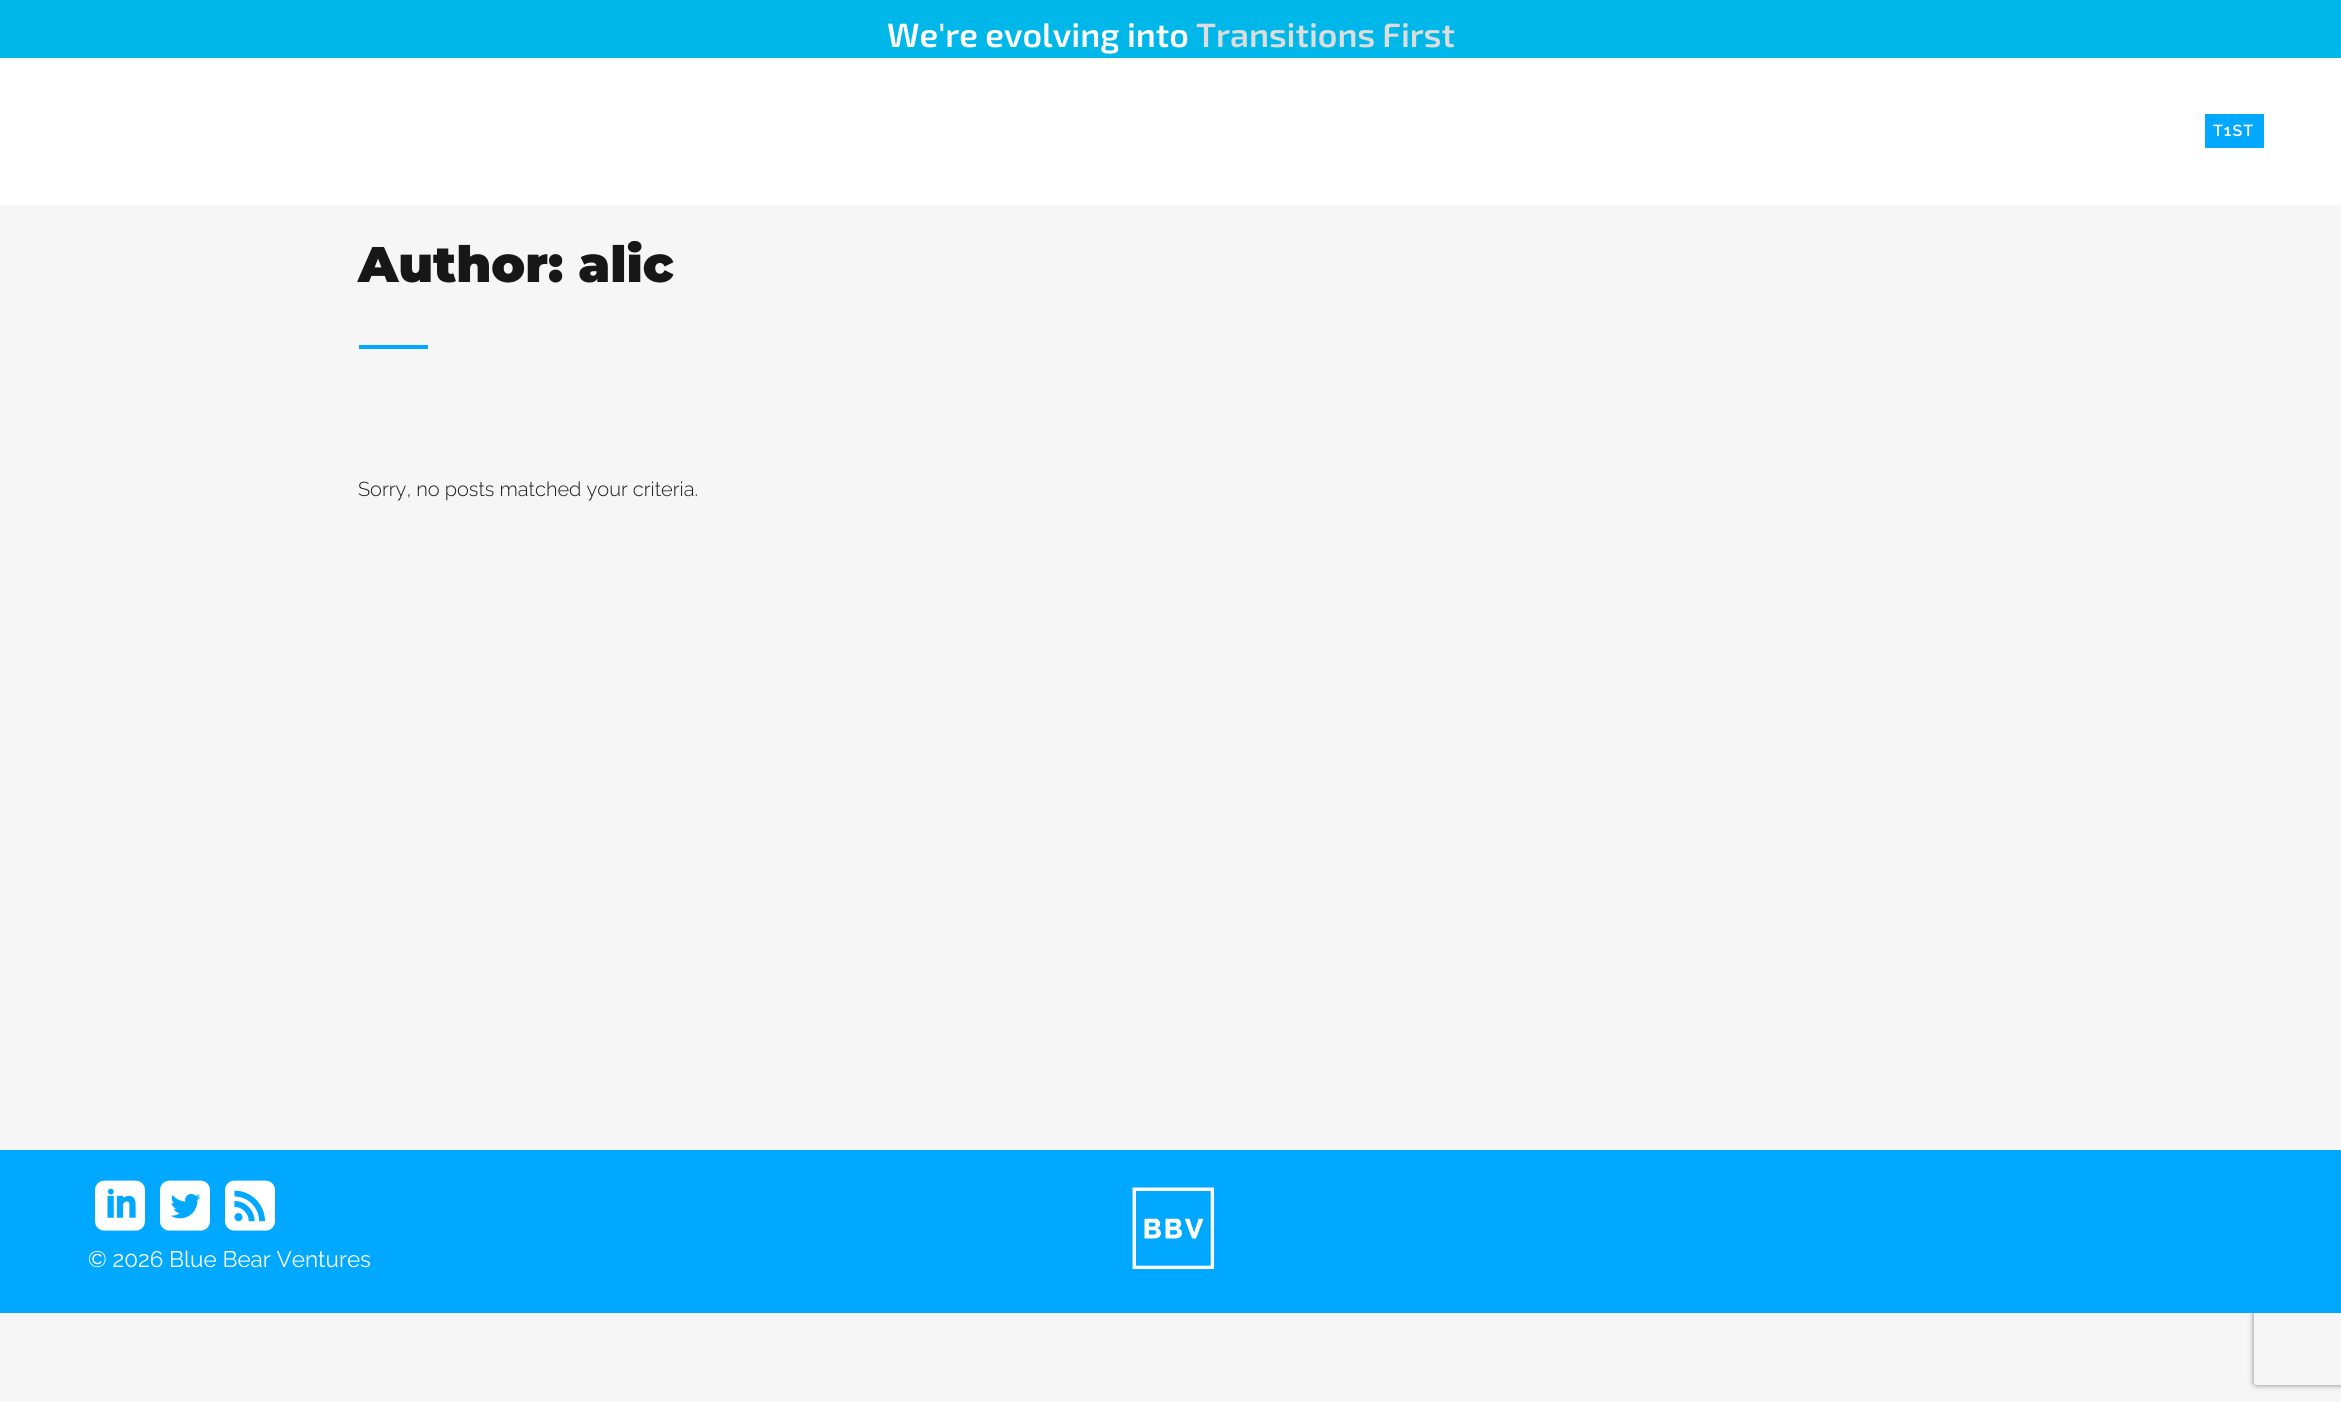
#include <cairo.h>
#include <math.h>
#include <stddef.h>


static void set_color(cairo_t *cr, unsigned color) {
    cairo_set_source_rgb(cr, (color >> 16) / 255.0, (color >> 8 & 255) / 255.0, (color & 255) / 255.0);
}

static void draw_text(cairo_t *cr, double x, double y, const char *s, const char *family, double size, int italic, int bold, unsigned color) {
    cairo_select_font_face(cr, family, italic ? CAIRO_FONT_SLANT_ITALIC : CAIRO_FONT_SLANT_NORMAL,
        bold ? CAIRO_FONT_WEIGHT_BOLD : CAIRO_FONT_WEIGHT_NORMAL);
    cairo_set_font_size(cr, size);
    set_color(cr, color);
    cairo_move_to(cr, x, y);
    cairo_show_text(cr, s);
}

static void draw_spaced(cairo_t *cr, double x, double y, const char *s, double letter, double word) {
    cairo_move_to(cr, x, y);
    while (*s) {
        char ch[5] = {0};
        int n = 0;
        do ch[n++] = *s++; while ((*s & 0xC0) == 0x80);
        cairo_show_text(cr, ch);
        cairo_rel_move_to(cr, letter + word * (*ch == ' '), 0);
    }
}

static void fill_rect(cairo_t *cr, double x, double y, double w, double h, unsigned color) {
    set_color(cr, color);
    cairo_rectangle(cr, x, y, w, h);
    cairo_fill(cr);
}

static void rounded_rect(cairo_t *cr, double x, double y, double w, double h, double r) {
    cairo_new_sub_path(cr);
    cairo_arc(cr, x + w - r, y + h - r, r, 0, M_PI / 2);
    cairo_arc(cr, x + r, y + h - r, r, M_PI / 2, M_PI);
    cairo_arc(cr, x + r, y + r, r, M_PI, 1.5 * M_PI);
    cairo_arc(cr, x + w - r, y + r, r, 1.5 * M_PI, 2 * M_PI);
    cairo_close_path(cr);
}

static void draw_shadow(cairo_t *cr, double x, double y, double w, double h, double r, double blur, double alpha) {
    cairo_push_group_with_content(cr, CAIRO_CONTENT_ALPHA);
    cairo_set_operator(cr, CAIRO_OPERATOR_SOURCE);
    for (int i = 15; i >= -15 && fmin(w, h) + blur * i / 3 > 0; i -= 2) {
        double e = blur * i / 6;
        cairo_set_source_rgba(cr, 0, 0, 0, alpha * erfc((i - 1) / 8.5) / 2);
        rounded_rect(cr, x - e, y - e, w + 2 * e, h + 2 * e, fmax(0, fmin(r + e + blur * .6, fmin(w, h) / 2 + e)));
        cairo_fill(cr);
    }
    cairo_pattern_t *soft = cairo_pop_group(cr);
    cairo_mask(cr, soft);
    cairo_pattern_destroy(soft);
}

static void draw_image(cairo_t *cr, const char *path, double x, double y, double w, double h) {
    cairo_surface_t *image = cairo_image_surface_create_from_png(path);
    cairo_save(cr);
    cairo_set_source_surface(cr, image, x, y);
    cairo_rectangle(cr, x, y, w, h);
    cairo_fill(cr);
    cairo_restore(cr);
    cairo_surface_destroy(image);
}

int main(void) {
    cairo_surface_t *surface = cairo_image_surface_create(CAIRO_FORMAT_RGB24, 2341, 1402);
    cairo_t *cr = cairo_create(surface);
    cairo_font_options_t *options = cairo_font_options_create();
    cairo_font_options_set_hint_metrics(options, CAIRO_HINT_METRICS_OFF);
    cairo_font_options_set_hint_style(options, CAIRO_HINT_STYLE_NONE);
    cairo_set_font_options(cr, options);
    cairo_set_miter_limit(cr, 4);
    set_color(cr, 0xF6F6F6);
    cairo_paint(cr);
    fill_rect(cr, 0, 0, 2341, 58, 0x00B7EA);
    draw_text(cr, 887, 47, "We're evolving into", "Exo 2 SemiBold", 33.75, 0, 0, 0xFFFFFF);
    draw_text(cr, 1196, 47, "Transitions First", "Exo 2 SemiBold", 33.75, 0, 0, 0xDDDDDD);
    fill_rect(cr, 0, 58, 2341, 147, 0xFFFFFF);
    fill_rect(cr, 2205, 114, 59, 34, 0x00A8FF);
    cairo_select_font_face(cr, "Raleway SemiBold", CAIRO_FONT_SLANT_NORMAL, CAIRO_FONT_WEIGHT_NORMAL);
    cairo_set_font_size(cr, 16);
    set_color(cr, 0xFFFFFF);
    draw_spaced(cr, 2213, 136, "T1ST", 1, 0);
    draw_text(cr, 358, 282, "Author: alic", "Montserrat Black", 50, 0, 0, 0x171717);
    fill_rect(cr, 359, 345, 69, 4, 0x00A8FF);
    draw_text(cr, 358, 496, "Sorry, no posts matched your criteria.", "Raleway Light", 20, 0, 0, 0x171717);
    cairo_save(cr);
    cairo_set_fill_rule(cr, CAIRO_FILL_RULE_EVEN_ODD);
    cairo_new_path(cr);
    cairo_move_to(cr, 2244, 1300);
    cairo_line_to(cr, 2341, 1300);
    cairo_line_to(cr, 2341, 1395);
    cairo_line_to(cr, 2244, 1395);
    cairo_close_path(cr);
    cairo_move_to(cr, 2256.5, 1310);
    cairo_line_to(cr, 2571.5, 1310);
    cairo_curve_to(cr, 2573, 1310, 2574, 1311, 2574, 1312.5);
    cairo_line_to(cr, 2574, 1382.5);
    cairo_curve_to(cr, 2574, 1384, 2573, 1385, 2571.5, 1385);
    cairo_line_to(cr, 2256.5, 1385);
    cairo_curve_to(cr, 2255, 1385, 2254, 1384, 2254, 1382.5);
    cairo_line_to(cr, 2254, 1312.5);
    cairo_curve_to(cr, 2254, 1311, 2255, 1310, 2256.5, 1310);
    cairo_close_path(cr);
    cairo_clip(cr);
    set_color(cr, 0x808080);
    draw_shadow(cr, 2254, 1310, 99, 75, 2.5, 3, 1);
    cairo_restore(cr);
    fill_rect(cr, 0, 1150, 2341, 163, 0x00A8FF);
    draw_image(cr, "assets/img1.png", 95, 1180, 50, 51);
    draw_image(cr, "assets/img2.png", 160, 1180, 50, 51);
    draw_image(cr, "assets/img3.png", 225, 1180, 50, 51);
    draw_text(cr, 88, 1267, "© 2026 Blue Bear Ventures", "Raleway", 22.5, 0, 0, 0xFFFFFF);
    draw_image(cr, "assets/img4.png", 1132, 1187, 83, 83);
    cairo_surface_write_to_png(surface, "output.png");
    cairo_font_options_destroy(options);
    cairo_destroy(cr);
    cairo_surface_destroy(surface);
    return 0;
}
